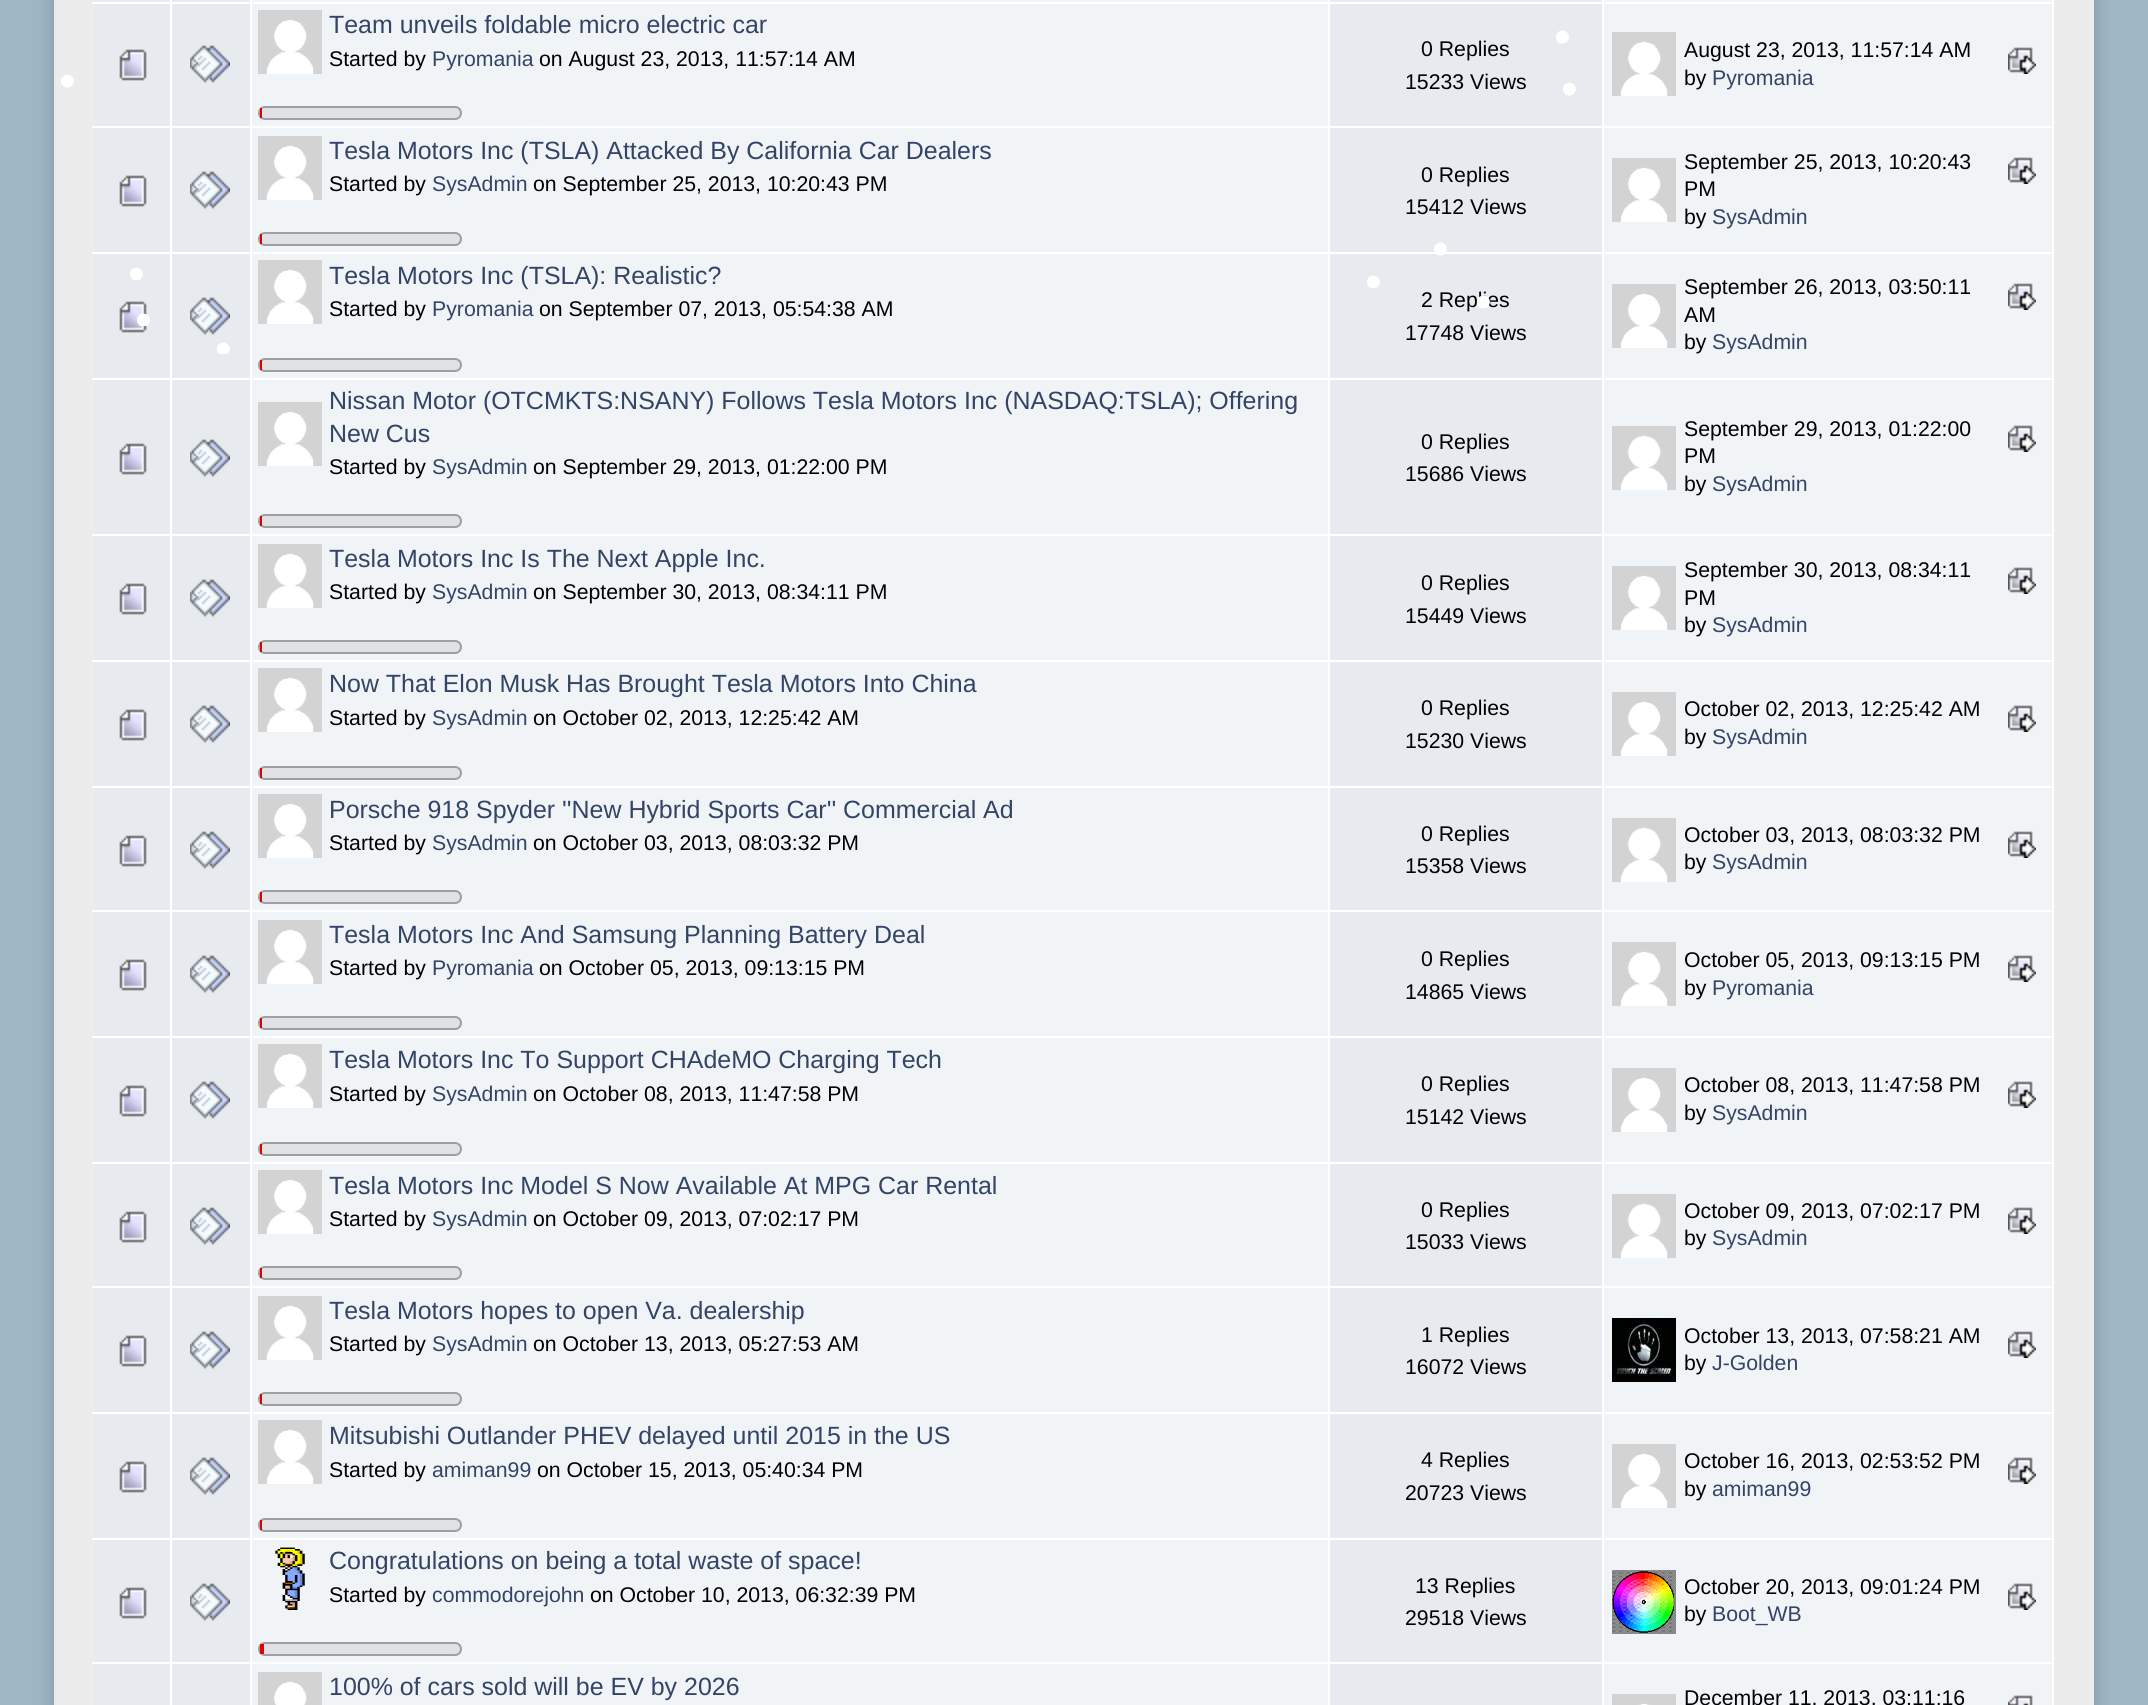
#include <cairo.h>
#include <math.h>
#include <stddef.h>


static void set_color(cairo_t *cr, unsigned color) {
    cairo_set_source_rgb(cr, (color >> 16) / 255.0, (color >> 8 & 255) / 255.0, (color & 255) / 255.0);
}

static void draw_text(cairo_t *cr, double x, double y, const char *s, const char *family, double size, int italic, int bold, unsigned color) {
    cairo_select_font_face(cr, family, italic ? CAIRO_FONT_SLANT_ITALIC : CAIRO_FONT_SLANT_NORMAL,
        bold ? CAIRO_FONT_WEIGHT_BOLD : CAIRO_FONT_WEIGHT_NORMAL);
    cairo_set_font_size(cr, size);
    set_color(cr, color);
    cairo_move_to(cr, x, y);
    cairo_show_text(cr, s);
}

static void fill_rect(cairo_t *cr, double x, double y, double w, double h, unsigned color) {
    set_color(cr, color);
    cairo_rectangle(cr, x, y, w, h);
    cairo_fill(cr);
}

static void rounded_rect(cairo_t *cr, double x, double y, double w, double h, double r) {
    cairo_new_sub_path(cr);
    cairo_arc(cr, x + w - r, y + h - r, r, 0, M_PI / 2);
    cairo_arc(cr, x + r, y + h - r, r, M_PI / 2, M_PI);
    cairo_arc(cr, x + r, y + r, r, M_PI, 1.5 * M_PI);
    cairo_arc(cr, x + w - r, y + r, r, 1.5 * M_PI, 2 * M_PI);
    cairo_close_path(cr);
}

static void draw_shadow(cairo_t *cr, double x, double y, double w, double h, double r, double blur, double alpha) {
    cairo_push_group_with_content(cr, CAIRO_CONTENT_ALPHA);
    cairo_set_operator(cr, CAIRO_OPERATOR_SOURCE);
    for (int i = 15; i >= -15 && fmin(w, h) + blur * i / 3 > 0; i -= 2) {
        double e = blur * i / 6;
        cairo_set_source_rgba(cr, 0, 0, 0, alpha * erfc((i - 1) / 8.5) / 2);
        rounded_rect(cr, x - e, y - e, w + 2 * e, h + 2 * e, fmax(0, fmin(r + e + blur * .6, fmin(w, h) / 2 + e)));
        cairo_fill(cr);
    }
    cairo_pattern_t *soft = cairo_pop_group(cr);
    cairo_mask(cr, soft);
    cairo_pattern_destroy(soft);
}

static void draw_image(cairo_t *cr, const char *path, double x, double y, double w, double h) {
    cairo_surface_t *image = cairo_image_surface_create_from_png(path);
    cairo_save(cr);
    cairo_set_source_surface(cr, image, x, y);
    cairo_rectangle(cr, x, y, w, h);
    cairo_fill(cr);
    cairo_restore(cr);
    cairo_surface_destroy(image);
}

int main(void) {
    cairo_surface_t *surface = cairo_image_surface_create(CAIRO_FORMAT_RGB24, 2148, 1705);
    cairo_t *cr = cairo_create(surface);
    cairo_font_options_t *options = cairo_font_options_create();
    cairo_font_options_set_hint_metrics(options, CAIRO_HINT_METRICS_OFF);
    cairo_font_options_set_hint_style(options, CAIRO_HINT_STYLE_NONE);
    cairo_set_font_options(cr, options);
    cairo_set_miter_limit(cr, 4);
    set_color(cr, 0xA0B7C6);
    cairo_paint(cr);
    set_color(cr, 0x000000);
    draw_shadow(cr, 54, -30, 2040, 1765, 0, 10, 0.2);
    fill_rect(cr, 54, 0, 2040, 1705, 0xECECEC);
    fill_rect(cr, 94, 0, 156, 2, 0xE7EAEF);
    fill_rect(cr, 250, 0, 1078, 2, 0xF0F4F7);
    fill_rect(cr, 1328, 0, 274, 2, 0xE7EAEF);
    fill_rect(cr, 1602, 0, 452, 2, 0xF0F4F7);
    fill_rect(cr, 1602, 1662, 2, 43, 0xFFFFFF);
    fill_rect(cr, 2052, 0, 2, 1705, 0xFFFFFF);
    fill_rect(cr, 1602, 1662, 452, 2, 0xFFFFFF);
    fill_rect(cr, 1602, 1538, 2, 126, 0xFFFFFF);
    fill_rect(cr, 1602, 1538, 452, 2, 0xFFFFFF);
    fill_rect(cr, 1602, 1412, 2, 128, 0xFFFFFF);
    fill_rect(cr, 1602, 1412, 452, 2, 0xFFFFFF);
    fill_rect(cr, 1602, 1286, 2, 128, 0xFFFFFF);
    fill_rect(cr, 1602, 1286, 452, 2, 0xFFFFFF);
    fill_rect(cr, 1602, 1162, 2, 126, 0xFFFFFF);
    fill_rect(cr, 1602, 1162, 452, 2, 0xFFFFFF);
    fill_rect(cr, 1602, 1036, 2, 128, 0xFFFFFF);
    fill_rect(cr, 1602, 1036, 452, 2, 0xFFFFFF);
    fill_rect(cr, 1602, 910, 2, 128, 0xFFFFFF);
    fill_rect(cr, 1602, 910, 452, 2, 0xFFFFFF);
    fill_rect(cr, 1602, 786, 2, 126, 0xFFFFFF);
    fill_rect(cr, 1602, 786, 452, 2, 0xFFFFFF);
    fill_rect(cr, 1602, 660, 2, 128, 0xFFFFFF);
    fill_rect(cr, 1602, 660, 452, 2, 0xFFFFFF);
    fill_rect(cr, 1602, 534, 2, 128, 0xFFFFFF);
    fill_rect(cr, 1602, 534, 452, 2, 0xFFFFFF);
    fill_rect(cr, 1602, 378, 2, 158, 0xFFFFFF);
    fill_rect(cr, 1602, 378, 452, 2, 0xFFFFFF);
    fill_rect(cr, 1602, 252, 2, 128, 0xFFFFFF);
    fill_rect(cr, 1602, 252, 452, 2, 0xFFFFFF);
    fill_rect(cr, 1602, 126, 2, 128, 0xFFFFFF);
    fill_rect(cr, 1602, 126, 452, 2, 0xFFFFFF);
    fill_rect(cr, 1602, 2, 2, 126, 0xFFFFFF);
    fill_rect(cr, 1602, 2, 452, 2, 0xFFFFFF);
    fill_rect(cr, 1602, 0, 2, 4, 0xFFFFFF);
    fill_rect(cr, 1328, 1662, 2, 43, 0xFFFFFF);
    fill_rect(cr, 1328, 1662, 276, 2, 0xFFFFFF);
    fill_rect(cr, 1328, 1538, 2, 126, 0xFFFFFF);
    fill_rect(cr, 1328, 1538, 276, 2, 0xFFFFFF);
    fill_rect(cr, 1328, 1412, 2, 128, 0xFFFFFF);
    fill_rect(cr, 1328, 1412, 276, 2, 0xFFFFFF);
    fill_rect(cr, 1328, 1286, 2, 128, 0xFFFFFF);
    fill_rect(cr, 1328, 1286, 276, 2, 0xFFFFFF);
    fill_rect(cr, 1328, 1162, 2, 126, 0xFFFFFF);
    fill_rect(cr, 1328, 1162, 276, 2, 0xFFFFFF);
    fill_rect(cr, 1328, 1036, 2, 128, 0xFFFFFF);
    fill_rect(cr, 1328, 1036, 276, 2, 0xFFFFFF);
    fill_rect(cr, 1328, 910, 2, 128, 0xFFFFFF);
    fill_rect(cr, 1328, 910, 276, 2, 0xFFFFFF);
    fill_rect(cr, 1328, 786, 2, 126, 0xFFFFFF);
    fill_rect(cr, 1328, 786, 276, 2, 0xFFFFFF);
    fill_rect(cr, 1328, 660, 2, 128, 0xFFFFFF);
    fill_rect(cr, 1328, 660, 276, 2, 0xFFFFFF);
    fill_rect(cr, 1328, 534, 2, 128, 0xFFFFFF);
    fill_rect(cr, 1328, 534, 276, 2, 0xFFFFFF);
    fill_rect(cr, 1328, 378, 2, 158, 0xFFFFFF);
    fill_rect(cr, 1328, 378, 276, 2, 0xFFFFFF);
    fill_rect(cr, 1328, 252, 2, 128, 0xFFFFFF);
    fill_rect(cr, 1328, 252, 276, 2, 0xFFFFFF);
    fill_rect(cr, 1328, 126, 2, 128, 0xFFFFFF);
    fill_rect(cr, 1328, 126, 276, 2, 0xFFFFFF);
    fill_rect(cr, 1328, 2, 2, 126, 0xFFFFFF);
    fill_rect(cr, 1328, 2, 276, 2, 0xFFFFFF);
    fill_rect(cr, 1328, 0, 2, 4, 0xFFFFFF);
    fill_rect(cr, 250, 1662, 2, 43, 0xFFFFFF);
    fill_rect(cr, 250, 1662, 1080, 2, 0xFFFFFF);
    fill_rect(cr, 250, 1538, 2, 126, 0xFFFFFF);
    fill_rect(cr, 250, 1538, 1080, 2, 0xFFFFFF);
    fill_rect(cr, 250, 1412, 2, 128, 0xFFFFFF);
    fill_rect(cr, 250, 1412, 1080, 2, 0xFFFFFF);
    fill_rect(cr, 250, 1286, 2, 128, 0xFFFFFF);
    fill_rect(cr, 250, 1286, 1080, 2, 0xFFFFFF);
    fill_rect(cr, 250, 1162, 2, 126, 0xFFFFFF);
    fill_rect(cr, 250, 1162, 1080, 2, 0xFFFFFF);
    fill_rect(cr, 250, 1036, 2, 128, 0xFFFFFF);
    fill_rect(cr, 250, 1036, 1080, 2, 0xFFFFFF);
    fill_rect(cr, 250, 910, 2, 128, 0xFFFFFF);
    fill_rect(cr, 250, 910, 1080, 2, 0xFFFFFF);
    fill_rect(cr, 250, 786, 2, 126, 0xFFFFFF);
    fill_rect(cr, 250, 786, 1080, 2, 0xFFFFFF);
    fill_rect(cr, 250, 660, 2, 128, 0xFFFFFF);
    fill_rect(cr, 250, 660, 1080, 2, 0xFFFFFF);
    fill_rect(cr, 250, 534, 2, 128, 0xFFFFFF);
    fill_rect(cr, 250, 534, 1080, 2, 0xFFFFFF);
    fill_rect(cr, 250, 378, 2, 158, 0xFFFFFF);
    fill_rect(cr, 250, 378, 1080, 2, 0xFFFFFF);
    fill_rect(cr, 250, 252, 2, 128, 0xFFFFFF);
    fill_rect(cr, 250, 252, 1080, 2, 0xFFFFFF);
    fill_rect(cr, 250, 126, 2, 128, 0xFFFFFF);
    fill_rect(cr, 250, 126, 1080, 2, 0xFFFFFF);
    fill_rect(cr, 250, 2, 2, 126, 0xFFFFFF);
    fill_rect(cr, 250, 2, 1080, 2, 0xFFFFFF);
    fill_rect(cr, 250, 0, 2, 4, 0xFFFFFF);
    fill_rect(cr, 170, 1662, 2, 43, 0xFFFFFF);
    fill_rect(cr, 170, 1662, 82, 2, 0xFFFFFF);
    fill_rect(cr, 170, 1538, 2, 126, 0xFFFFFF);
    fill_rect(cr, 170, 1538, 82, 2, 0xFFFFFF);
    fill_rect(cr, 170, 1412, 2, 128, 0xFFFFFF);
    fill_rect(cr, 170, 1412, 82, 2, 0xFFFFFF);
    fill_rect(cr, 170, 1286, 2, 128, 0xFFFFFF);
    fill_rect(cr, 170, 1286, 82, 2, 0xFFFFFF);
    fill_rect(cr, 170, 1162, 2, 126, 0xFFFFFF);
    fill_rect(cr, 170, 1162, 82, 2, 0xFFFFFF);
    fill_rect(cr, 170, 1036, 2, 128, 0xFFFFFF);
    fill_rect(cr, 170, 1036, 82, 2, 0xFFFFFF);
    fill_rect(cr, 170, 910, 2, 128, 0xFFFFFF);
    fill_rect(cr, 170, 910, 82, 2, 0xFFFFFF);
    fill_rect(cr, 170, 786, 2, 126, 0xFFFFFF);
    fill_rect(cr, 170, 786, 82, 2, 0xFFFFFF);
    fill_rect(cr, 170, 660, 2, 128, 0xFFFFFF);
    fill_rect(cr, 170, 660, 82, 2, 0xFFFFFF);
    fill_rect(cr, 170, 534, 2, 128, 0xFFFFFF);
    fill_rect(cr, 170, 534, 82, 2, 0xFFFFFF);
    fill_rect(cr, 170, 378, 2, 158, 0xFFFFFF);
    fill_rect(cr, 170, 378, 82, 2, 0xFFFFFF);
    fill_rect(cr, 170, 252, 2, 128, 0xFFFFFF);
    fill_rect(cr, 170, 252, 82, 2, 0xFFFFFF);
    fill_rect(cr, 170, 126, 2, 128, 0xFFFFFF);
    fill_rect(cr, 170, 126, 82, 2, 0xFFFFFF);
    fill_rect(cr, 170, 2, 2, 126, 0xFFFFFF);
    fill_rect(cr, 170, 2, 82, 2, 0xFFFFFF);
    fill_rect(cr, 170, 0, 2, 4, 0xFFFFFF);
    fill_rect(cr, 92, 2, 80, 2, 0xFFFFFF);
    fill_rect(cr, 94, 4, 76, 122, 0xE7EAEF);
    fill_rect(cr, 92, 126, 80, 2, 0xFFFFFF);
    draw_image(cr, "assets/img1.png", 119, 49, 28, 32);
    fill_rect(cr, 172, 4, 78, 122, 0xE7EAEF);
    draw_image(cr, "assets/img2.png", 190, 45, 40, 38);
    fill_rect(cr, 252, 4, 1076, 122, 0xF0F4F7);
    draw_image(cr, "assets/img3.png", 258, 10, 64, 64);
    draw_text(cr, 329, 33, "Team unveils foldable micro electric car", "Liberation Sans", 24.95, 0, 0, 0x334466);
    draw_text(cr, 329, 66, "Started by", "Liberation Sans", 21.25, 0, 0, 0x000000);
    draw_text(cr, 432, 66, "Pyromania", "Liberation Sans", 21.25, 0, 0, 0x334466);
    draw_text(cr, 539, 66, "on August 23, 2013, 11:57:14 AM", "Liberation Sans", 21.25, 0, 0, 0x000000);
    set_color(cr, 0xE0E2E4);
    rounded_rect(cr, 258, 106, 204, 14, 7);
    cairo_fill(cr);
    rounded_rect(cr, 259, 107, 202, 12, 6);
    cairo_set_source_rgba(cr, 0, 0, 0, 0.3);
    cairo_stroke(cr);
    fill_rect(cr, 260, 108, 2, 10, 0xDF0101);
    fill_rect(cr, 1330, 4, 272, 122, 0xE7EAEF);
    draw_text(cr, 1421, 56, "0 Replies", "Liberation Sans", 21.25, 0, 0, 0x000000);
    draw_text(cr, 1405, 89, "15233 Views", "Liberation Sans", 21.25, 0, 0, 0x000000);
    fill_rect(cr, 1604, 4, 448, 122, 0xF0F4F7);
    draw_image(cr, "assets/img3.png", 1612, 32, 64, 64);
    draw_text(cr, 1684, 57, "August 23, 2013, 11:57:14 AM", "Liberation Sans", 21.25, 0, 0, 0x000000);
    draw_image(cr, "assets/img4.png", 2008, 47, 28, 27);
    draw_text(cr, 1684, 85, "by", "Liberation Sans", 21.25, 0, 0, 0x000000);
    draw_text(cr, 1712, 85, "Pyromania", "Liberation Sans", 21.25, 0, 0, 0x334466);
    fill_rect(cr, 94, 128, 76, 124, 0xE7EAEF);
    fill_rect(cr, 92, 252, 80, 2, 0xFFFFFF);
    draw_image(cr, "assets/img1.png", 119, 175, 28, 32);
    fill_rect(cr, 172, 128, 78, 124, 0xE7EAEF);
    draw_image(cr, "assets/img2.png", 190, 171, 40, 38);
    fill_rect(cr, 252, 128, 1076, 124, 0xF0F4F7);
    draw_image(cr, "assets/img3.png", 258, 136, 64, 64);
    draw_text(cr, 329, 159, "Tesla Motors Inc (TSLA) Attacked By California Car Dealers", "Liberation Sans", 24.95, 0, 0, 0x334466);
    draw_text(cr, 329, 191, "Started by", "Liberation Sans", 21.25, 0, 0, 0x000000);
    draw_text(cr, 432, 191, "SysAdmin", "Liberation Sans", 21.25, 0, 0, 0x334466);
    draw_text(cr, 533, 191, "on September 25, 2013, 10:20:43 PM", "Liberation Sans", 21.25, 0, 0, 0x000000);
    set_color(cr, 0xE0E2E4);
    rounded_rect(cr, 258, 232, 204, 14, 7);
    cairo_fill(cr);
    rounded_rect(cr, 259, 233, 202, 12, 6);
    cairo_set_source_rgba(cr, 0, 0, 0, 0.3);
    cairo_stroke(cr);
    fill_rect(cr, 260, 234, 2, 10, 0xDF0101);
    fill_rect(cr, 1330, 128, 272, 124, 0xE7EAEF);
    draw_text(cr, 1421, 182, "0 Replies", "Liberation Sans", 21.25, 0, 0, 0x000000);
    draw_text(cr, 1405, 214, "15412 Views", "Liberation Sans", 21.25, 0, 0, 0x000000);
    fill_rect(cr, 1604, 128, 448, 124, 0xF0F4F7);
    draw_image(cr, "assets/img3.png", 1612, 158, 64, 64);
    draw_text(cr, 1684, 169, "September 25, 2013, 10:20:43", "Liberation Sans", 21.25, 0, 0, 0x000000);
    draw_image(cr, "assets/img4.png", 2008, 157, 28, 27);
    draw_text(cr, 1684, 196, "PM", "Liberation Sans", 21.25, 0, 0, 0x000000);
    draw_text(cr, 1684, 224, "by", "Liberation Sans", 21.25, 0, 0, 0x000000);
    draw_text(cr, 1712, 224, "SysAdmin", "Liberation Sans", 21.25, 0, 0, 0x334466);
    fill_rect(cr, 94, 254, 76, 124, 0xE7EAEF);
    fill_rect(cr, 92, 378, 80, 2, 0xFFFFFF);
    draw_image(cr, "assets/img1.png", 119, 301, 28, 32);
    fill_rect(cr, 172, 254, 78, 124, 0xE7EAEF);
    draw_image(cr, "assets/img2.png", 190, 297, 40, 38);
    fill_rect(cr, 252, 254, 1076, 124, 0xF0F4F7);
    draw_image(cr, "assets/img3.png", 258, 260, 64, 64);
    draw_text(cr, 329, 284, "Tesla Motors Inc (TSLA): Realistic?", "Liberation Sans", 24.95, 0, 0, 0x334466);
    draw_text(cr, 329, 316, "Started by", "Liberation Sans", 21.25, 0, 0, 0x000000);
    draw_text(cr, 432, 316, "Pyromania", "Liberation Sans", 21.25, 0, 0, 0x334466);
    draw_text(cr, 539, 316, "on September 07, 2013, 05:54:38 AM", "Liberation Sans", 21.25, 0, 0, 0x000000);
    set_color(cr, 0xE0E2E4);
    rounded_rect(cr, 258, 358, 204, 14, 7);
    cairo_fill(cr);
    rounded_rect(cr, 259, 359, 202, 12, 6);
    cairo_set_source_rgba(cr, 0, 0, 0, 0.3);
    cairo_stroke(cr);
    fill_rect(cr, 260, 360, 2, 10, 0xDF0101);
    fill_rect(cr, 1330, 254, 272, 124, 0xE7EAEF);
    draw_text(cr, 1421, 307, "2 Replies", "Liberation Sans", 21.25, 0, 0, 0x000000);
    draw_text(cr, 1405, 340, "17748 Views", "Liberation Sans", 21.25, 0, 0, 0x000000);
    fill_rect(cr, 1604, 254, 448, 124, 0xF0F4F7);
    draw_image(cr, "assets/img3.png", 1612, 284, 64, 64);
    draw_text(cr, 1684, 294, "September 26, 2013, 03:50:11", "Liberation Sans", 21.25, 0, 0, 0x000000);
    draw_image(cr, "assets/img4.png", 2008, 283, 28, 27);
    draw_text(cr, 1684, 322, "AM", "Liberation Sans", 21.25, 0, 0, 0x000000);
    draw_text(cr, 1684, 349, "by", "Liberation Sans", 21.25, 0, 0, 0x000000);
    draw_text(cr, 1712, 349, "SysAdmin", "Liberation Sans", 21.25, 0, 0, 0x334466);
    fill_rect(cr, 94, 380, 76, 154, 0xE7EAEF);
    fill_rect(cr, 92, 534, 80, 2, 0xFFFFFF);
    draw_image(cr, "assets/img1.png", 119, 443, 28, 32);
    fill_rect(cr, 172, 380, 78, 154, 0xE7EAEF);
    draw_image(cr, "assets/img2.png", 190, 439, 40, 38);
    fill_rect(cr, 252, 380, 1076, 154, 0xF0F4F7);
    draw_image(cr, "assets/img3.png", 258, 402, 64, 64);
    draw_text(cr, 329, 409, "Nissan Motor (OTCMKTS:NSANY) Follows Tesla Motors Inc (NASDAQ:TSLA); Offering", "Liberation Sans", 24.95, 0, 0, 0x334466);
    draw_text(cr, 329, 442, "New Cus", "Liberation Sans", 24.95, 0, 0, 0x334466);
    draw_text(cr, 329, 474, "Started by", "Liberation Sans", 21.25, 0, 0, 0x000000);
    draw_text(cr, 432, 474, "SysAdmin", "Liberation Sans", 21.25, 0, 0, 0x334466);
    draw_text(cr, 533, 474, "on September 29, 2013, 01:22:00 PM", "Liberation Sans", 21.25, 0, 0, 0x000000);
    set_color(cr, 0xE0E2E4);
    rounded_rect(cr, 258, 514, 204, 14, 7);
    cairo_fill(cr);
    rounded_rect(cr, 259, 515, 202, 12, 6);
    cairo_set_source_rgba(cr, 0, 0, 0, 0.3);
    cairo_stroke(cr);
    fill_rect(cr, 260, 516, 2, 10, 0xDF0101);
    fill_rect(cr, 1330, 380, 272, 154, 0xE7EAEF);
    draw_text(cr, 1421, 449, "0 Replies", "Liberation Sans", 21.25, 0, 0, 0x000000);
    draw_text(cr, 1405, 481, "15686 Views", "Liberation Sans", 21.25, 0, 0, 0x000000);
    fill_rect(cr, 1604, 380, 448, 154, 0xF0F4F7);
    draw_image(cr, "assets/img3.png", 1612, 426, 64, 64);
    draw_text(cr, 1684, 436, "September 29, 2013, 01:22:00", "Liberation Sans", 21.25, 0, 0, 0x000000);
    draw_image(cr, "assets/img4.png", 2008, 425, 28, 27);
    draw_text(cr, 1684, 463, "PM", "Liberation Sans", 21.25, 0, 0, 0x000000);
    draw_text(cr, 1684, 491, "by", "Liberation Sans", 21.25, 0, 0, 0x000000);
    draw_text(cr, 1712, 491, "SysAdmin", "Liberation Sans", 21.25, 0, 0, 0x334466);
    fill_rect(cr, 94, 536, 76, 124, 0xE7EAEF);
    fill_rect(cr, 92, 660, 80, 2, 0xFFFFFF);
    draw_image(cr, "assets/img1.png", 119, 583, 28, 32);
    fill_rect(cr, 172, 536, 78, 124, 0xE7EAEF);
    draw_image(cr, "assets/img2.png", 190, 579, 40, 38);
    fill_rect(cr, 252, 536, 1076, 124, 0xF0F4F7);
    draw_image(cr, "assets/img3.png", 258, 544, 64, 64);
    draw_text(cr, 329, 567, "Tesla Motors Inc Is The Next Apple Inc.", "Liberation Sans", 24.95, 0, 0, 0x334466);
    draw_text(cr, 329, 599, "Started by", "Liberation Sans", 21.25, 0, 0, 0x000000);
    draw_text(cr, 432, 599, "SysAdmin", "Liberation Sans", 21.25, 0, 0, 0x334466);
    draw_text(cr, 533, 599, "on September 30, 2013, 08:34:11 PM", "Liberation Sans", 21.25, 0, 0, 0x000000);
    set_color(cr, 0xE0E2E4);
    rounded_rect(cr, 258, 640, 204, 14, 7);
    cairo_fill(cr);
    rounded_rect(cr, 259, 641, 202, 12, 6);
    cairo_set_source_rgba(cr, 0, 0, 0, 0.3);
    cairo_stroke(cr);
    fill_rect(cr, 260, 642, 2, 10, 0xDF0101);
    fill_rect(cr, 1330, 536, 272, 124, 0xE7EAEF);
    draw_text(cr, 1421, 590, "0 Replies", "Liberation Sans", 21.25, 0, 0, 0x000000);
    draw_text(cr, 1405, 623, "15449 Views", "Liberation Sans", 21.25, 0, 0, 0x000000);
    fill_rect(cr, 1604, 536, 448, 124, 0xF0F4F7);
    draw_image(cr, "assets/img3.png", 1612, 566, 64, 64);
    draw_text(cr, 1684, 577, "September 30, 2013, 08:34:11", "Liberation Sans", 21.25, 0, 0, 0x000000);
    draw_image(cr, "assets/img4.png", 2008, 567, 28, 27);
    draw_text(cr, 1684, 605, "PM", "Liberation Sans", 21.25, 0, 0, 0x000000);
    draw_text(cr, 1684, 632, "by", "Liberation Sans", 21.25, 0, 0, 0x000000);
    draw_text(cr, 1712, 632, "SysAdmin", "Liberation Sans", 21.25, 0, 0, 0x334466);
    fill_rect(cr, 94, 662, 76, 124, 0xE7EAEF);
    fill_rect(cr, 92, 786, 80, 2, 0xFFFFFF);
    draw_image(cr, "assets/img1.png", 119, 709, 28, 32);
    fill_rect(cr, 172, 662, 78, 124, 0xE7EAEF);
    draw_image(cr, "assets/img2.png", 190, 705, 40, 38);
    fill_rect(cr, 252, 662, 1076, 124, 0xF0F4F7);
    draw_image(cr, "assets/img3.png", 258, 668, 64, 64);
    draw_text(cr, 329, 692, "Now That Elon Musk Has Brought Tesla Motors Into China", "Liberation Sans", 24.95, 0, 0, 0x334466);
    draw_text(cr, 329, 725, "Started by", "Liberation Sans", 21.25, 0, 0, 0x000000);
    draw_text(cr, 432, 725, "SysAdmin", "Liberation Sans", 21.25, 0, 0, 0x334466);
    draw_text(cr, 533, 725, "on October 02, 2013, 12:25:42 AM", "Liberation Sans", 21.25, 0, 0, 0x000000);
    set_color(cr, 0xE0E2E4);
    rounded_rect(cr, 258, 766, 204, 14, 7);
    cairo_fill(cr);
    rounded_rect(cr, 259, 767, 202, 12, 6);
    cairo_set_source_rgba(cr, 0, 0, 0, 0.3);
    cairo_stroke(cr);
    fill_rect(cr, 260, 768, 2, 10, 0xDF0101);
    fill_rect(cr, 1330, 662, 272, 124, 0xE7EAEF);
    draw_text(cr, 1421, 715, "0 Replies", "Liberation Sans", 21.25, 0, 0, 0x000000);
    draw_text(cr, 1405, 748, "15230 Views", "Liberation Sans", 21.25, 0, 0, 0x000000);
    fill_rect(cr, 1604, 662, 448, 124, 0xF0F4F7);
    draw_image(cr, "assets/img3.png", 1612, 692, 64, 64);
    draw_text(cr, 1684, 716, "October 02, 2013, 12:25:42 AM", "Liberation Sans", 21.25, 0, 0, 0x000000);
    draw_image(cr, "assets/img4.png", 2008, 705, 28, 27);
    draw_text(cr, 1684, 744, "by", "Liberation Sans", 21.25, 0, 0, 0x000000);
    draw_text(cr, 1712, 744, "SysAdmin", "Liberation Sans", 21.25, 0, 0, 0x334466);
    fill_rect(cr, 94, 788, 76, 122, 0xE7EAEF);
    fill_rect(cr, 92, 910, 80, 2, 0xFFFFFF);
    draw_image(cr, "assets/img1.png", 119, 835, 28, 32);
    fill_rect(cr, 172, 788, 78, 122, 0xE7EAEF);
    draw_image(cr, "assets/img2.png", 190, 831, 40, 38);
    fill_rect(cr, 252, 788, 1076, 122, 0xF0F4F7);
    draw_image(cr, "assets/img3.png", 258, 794, 64, 64);
    draw_text(cr, 329, 818, "Porsche 918 Spyder ''New Hybrid Sports Car'' Commercial Ad", "Liberation Sans", 24.95, 0, 0, 0x334466);
    draw_text(cr, 329, 850, "Started by", "Liberation Sans", 21.25, 0, 0, 0x000000);
    draw_text(cr, 432, 850, "SysAdmin", "Liberation Sans", 21.25, 0, 0, 0x334466);
    draw_text(cr, 533, 850, "on October 03, 2013, 08:03:32 PM", "Liberation Sans", 21.25, 0, 0, 0x000000);
    set_color(cr, 0xE0E2E4);
    rounded_rect(cr, 258, 890, 204, 14, 7);
    cairo_fill(cr);
    rounded_rect(cr, 259, 891, 202, 12, 6);
    cairo_set_source_rgba(cr, 0, 0, 0, 0.3);
    cairo_stroke(cr);
    fill_rect(cr, 260, 892, 2, 10, 0xDF0101);
    fill_rect(cr, 1330, 788, 272, 122, 0xE7EAEF);
    draw_text(cr, 1421, 841, "0 Replies", "Liberation Sans", 21.25, 0, 0, 0x000000);
    draw_text(cr, 1405, 873, "15358 Views", "Liberation Sans", 21.25, 0, 0, 0x000000);
    fill_rect(cr, 1604, 788, 448, 122, 0xF0F4F7);
    draw_image(cr, "assets/img3.png", 1612, 818, 64, 64);
    draw_text(cr, 1684, 842, "October 03, 2013, 08:03:32 PM", "Liberation Sans", 21.25, 0, 0, 0x000000);
    draw_image(cr, "assets/img4.png", 2008, 831, 28, 27);
    draw_text(cr, 1684, 869, "by", "Liberation Sans", 21.25, 0, 0, 0x000000);
    draw_text(cr, 1712, 869, "SysAdmin", "Liberation Sans", 21.25, 0, 0, 0x334466);
    fill_rect(cr, 94, 912, 76, 124, 0xE7EAEF);
    fill_rect(cr, 92, 1036, 80, 2, 0xFFFFFF);
    draw_image(cr, "assets/img1.png", 119, 959, 28, 32);
    fill_rect(cr, 172, 912, 78, 124, 0xE7EAEF);
    draw_image(cr, "assets/img2.png", 190, 955, 40, 38);
    fill_rect(cr, 252, 912, 1076, 124, 0xF0F4F7);
    draw_image(cr, "assets/img3.png", 258, 920, 64, 64);
    draw_text(cr, 329, 943, "Tesla Motors Inc And Samsung Planning Battery Deal", "Liberation Sans", 24.95, 0, 0, 0x334466);
    draw_text(cr, 329, 975, "Started by", "Liberation Sans", 21.25, 0, 0, 0x000000);
    draw_text(cr, 432, 975, "Pyromania", "Liberation Sans", 21.25, 0, 0, 0x334466);
    draw_text(cr, 539, 975, "on October 05, 2013, 09:13:15 PM", "Liberation Sans", 21.25, 0, 0, 0x000000);
    set_color(cr, 0xE0E2E4);
    rounded_rect(cr, 258, 1016, 204, 14, 7);
    cairo_fill(cr);
    rounded_rect(cr, 259, 1017, 202, 12, 6);
    cairo_set_source_rgba(cr, 0, 0, 0, 0.3);
    cairo_stroke(cr);
    fill_rect(cr, 260, 1018, 2, 10, 0xDF0101);
    fill_rect(cr, 1330, 912, 272, 124, 0xE7EAEF);
    draw_text(cr, 1421, 966, "0 Replies", "Liberation Sans", 21.25, 0, 0, 0x000000);
    draw_text(cr, 1405, 999, "14865 Views", "Liberation Sans", 21.25, 0, 0, 0x000000);
    fill_rect(cr, 1604, 912, 448, 124, 0xF0F4F7);
    draw_image(cr, "assets/img3.png", 1612, 942, 64, 64);
    draw_text(cr, 1684, 967, "October 05, 2013, 09:13:15 PM", "Liberation Sans", 21.25, 0, 0, 0x000000);
    draw_image(cr, "assets/img4.png", 2008, 955, 28, 27);
    draw_text(cr, 1684, 995, "by", "Liberation Sans", 21.25, 0, 0, 0x000000);
    draw_text(cr, 1712, 995, "Pyromania", "Liberation Sans", 21.25, 0, 0, 0x334466);
    fill_rect(cr, 94, 1038, 76, 124, 0xE7EAEF);
    fill_rect(cr, 92, 1162, 80, 2, 0xFFFFFF);
    draw_image(cr, "assets/img1.png", 119, 1085, 28, 32);
    fill_rect(cr, 172, 1038, 78, 124, 0xE7EAEF);
    draw_image(cr, "assets/img2.png", 190, 1081, 40, 38);
    fill_rect(cr, 252, 1038, 1076, 124, 0xF0F4F7);
    draw_image(cr, "assets/img3.png", 258, 1044, 64, 64);
    draw_text(cr, 329, 1068, "Tesla Motors Inc To Support CHAdeMO Charging Tech", "Liberation Sans", 24.95, 0, 0, 0x334466);
    draw_text(cr, 329, 1101, "Started by", "Liberation Sans", 21.25, 0, 0, 0x000000);
    draw_text(cr, 432, 1101, "SysAdmin", "Liberation Sans", 21.25, 0, 0, 0x334466);
    draw_text(cr, 533, 1101, "on October 08, 2013, 11:47:58 PM", "Liberation Sans", 21.25, 0, 0, 0x000000);
    set_color(cr, 0xE0E2E4);
    rounded_rect(cr, 258, 1142, 204, 14, 7);
    cairo_fill(cr);
    rounded_rect(cr, 259, 1143, 202, 12, 6);
    cairo_set_source_rgba(cr, 0, 0, 0, 0.3);
    cairo_stroke(cr);
    fill_rect(cr, 260, 1144, 2, 10, 0xDF0101);
    fill_rect(cr, 1330, 1038, 272, 124, 0xE7EAEF);
    draw_text(cr, 1421, 1091, "0 Replies", "Liberation Sans", 21.25, 0, 0, 0x000000);
    draw_text(cr, 1405, 1124, "15142 Views", "Liberation Sans", 21.25, 0, 0, 0x000000);
    fill_rect(cr, 1604, 1038, 448, 124, 0xF0F4F7);
    draw_image(cr, "assets/img3.png", 1612, 1068, 64, 64);
    draw_text(cr, 1684, 1092, "October 08, 2013, 11:47:58 PM", "Liberation Sans", 21.25, 0, 0, 0x000000);
    draw_image(cr, "assets/img4.png", 2008, 1081, 28, 27);
    draw_text(cr, 1684, 1120, "by", "Liberation Sans", 21.25, 0, 0, 0x000000);
    draw_text(cr, 1712, 1120, "SysAdmin", "Liberation Sans", 21.25, 0, 0, 0x334466);
    fill_rect(cr, 94, 1164, 76, 122, 0xE7EAEF);
    fill_rect(cr, 92, 1286, 80, 2, 0xFFFFFF);
    draw_image(cr, "assets/img1.png", 119, 1211, 28, 32);
    fill_rect(cr, 172, 1164, 78, 122, 0xE7EAEF);
    draw_image(cr, "assets/img2.png", 190, 1207, 40, 38);
    fill_rect(cr, 252, 1164, 1076, 122, 0xF0F4F7);
    draw_image(cr, "assets/img3.png", 258, 1170, 64, 64);
    draw_text(cr, 329, 1194, "Tesla Motors Inc Model S Now Available At MPG Car Rental", "Liberation Sans", 24.95, 0, 0, 0x334466);
    draw_text(cr, 329, 1226, "Started by", "Liberation Sans", 21.25, 0, 0, 0x000000);
    draw_text(cr, 432, 1226, "SysAdmin", "Liberation Sans", 21.25, 0, 0, 0x334466);
    draw_text(cr, 533, 1226, "on October 09, 2013, 07:02:17 PM", "Liberation Sans", 21.25, 0, 0, 0x000000);
    set_color(cr, 0xE0E2E4);
    rounded_rect(cr, 258, 1266, 204, 14, 7);
    cairo_fill(cr);
    rounded_rect(cr, 259, 1267, 202, 12, 6);
    cairo_set_source_rgba(cr, 0, 0, 0, 0.3);
    cairo_stroke(cr);
    fill_rect(cr, 260, 1268, 2, 10, 0xDF0101);
    fill_rect(cr, 1330, 1164, 272, 122, 0xE7EAEF);
    draw_text(cr, 1421, 1217, "0 Replies", "Liberation Sans", 21.25, 0, 0, 0x000000);
    draw_text(cr, 1405, 1249, "15033 Views", "Liberation Sans", 21.25, 0, 0, 0x000000);
    fill_rect(cr, 1604, 1164, 448, 122, 0xF0F4F7);
    draw_image(cr, "assets/img3.png", 1612, 1194, 64, 64);
    draw_text(cr, 1684, 1218, "October 09, 2013, 07:02:17 PM", "Liberation Sans", 21.25, 0, 0, 0x000000);
    draw_image(cr, "assets/img4.png", 2008, 1207, 28, 27);
    draw_text(cr, 1684, 1245, "by", "Liberation Sans", 21.25, 0, 0, 0x000000);
    draw_text(cr, 1712, 1245, "SysAdmin", "Liberation Sans", 21.25, 0, 0, 0x334466);
    fill_rect(cr, 94, 1288, 76, 124, 0xE7EAEF);
    fill_rect(cr, 92, 1412, 80, 2, 0xFFFFFF);
    draw_image(cr, "assets/img1.png", 119, 1335, 28, 32);
    fill_rect(cr, 172, 1288, 78, 124, 0xE7EAEF);
    draw_image(cr, "assets/img2.png", 190, 1331, 40, 38);
    fill_rect(cr, 252, 1288, 1076, 124, 0xF0F4F7);
    draw_image(cr, "assets/img3.png", 258, 1296, 64, 64);
    draw_text(cr, 329, 1319, "Tesla Motors hopes to open Va. dealership", "Liberation Sans", 24.95, 0, 0, 0x334466);
    draw_text(cr, 329, 1351, "Started by", "Liberation Sans", 21.25, 0, 0, 0x000000);
    draw_text(cr, 432, 1351, "SysAdmin", "Liberation Sans", 21.25, 0, 0, 0x334466);
    draw_text(cr, 533, 1351, "on October 13, 2013, 05:27:53 AM", "Liberation Sans", 21.25, 0, 0, 0x000000);
    set_color(cr, 0xE0E2E4);
    rounded_rect(cr, 258, 1392, 204, 14, 7);
    cairo_fill(cr);
    rounded_rect(cr, 259, 1393, 202, 12, 6);
    cairo_set_source_rgba(cr, 0, 0, 0, 0.3);
    cairo_stroke(cr);
    fill_rect(cr, 260, 1394, 2, 10, 0xDF0101);
    fill_rect(cr, 1330, 1288, 272, 124, 0xE7EAEF);
    draw_text(cr, 1421, 1342, "1 Replies", "Liberation Sans", 21.25, 0, 0, 0x000000);
    draw_text(cr, 1405, 1374, "16072 Views", "Liberation Sans", 21.25, 0, 0, 0x000000);
    fill_rect(cr, 1604, 1288, 448, 124, 0xF0F4F7);
    draw_image(cr, "assets/img5.png", 1612, 1318, 64, 64);
    draw_text(cr, 1684, 1343, "October 13, 2013, 07:58:21 AM", "Liberation Sans", 21.25, 0, 0, 0x000000);
    draw_image(cr, "assets/img4.png", 2008, 1331, 28, 27);
    draw_text(cr, 1684, 1370, "by", "Liberation Sans", 21.25, 0, 0, 0x000000);
    draw_text(cr, 1712, 1370, "J-Golden", "Liberation Sans", 21.25, 0, 0, 0x334466);
    fill_rect(cr, 94, 1414, 76, 124, 0xE7EAEF);
    fill_rect(cr, 92, 1538, 80, 2, 0xFFFFFF);
    draw_image(cr, "assets/img1.png", 119, 1461, 28, 32);
    fill_rect(cr, 172, 1414, 78, 124, 0xE7EAEF);
    draw_image(cr, "assets/img2.png", 190, 1457, 40, 38);
    fill_rect(cr, 252, 1414, 1076, 124, 0xF0F4F7);
    draw_image(cr, "assets/img3.png", 258, 1420, 64, 64);
    draw_text(cr, 329, 1444, "Mitsubishi Outlander PHEV delayed until 2015 in the US", "Liberation Sans", 24.95, 0, 0, 0x334466);
    draw_text(cr, 329, 1477, "Started by", "Liberation Sans", 21.25, 0, 0, 0x000000);
    draw_text(cr, 432, 1477, "amiman99", "Liberation Sans", 21.25, 0, 0, 0x334466);
    draw_text(cr, 537, 1477, "on October 15, 2013, 05:40:34 PM", "Liberation Sans", 21.25, 0, 0, 0x000000);
    set_color(cr, 0xE0E2E4);
    rounded_rect(cr, 258, 1518, 204, 14, 7);
    cairo_fill(cr);
    rounded_rect(cr, 259, 1519, 202, 12, 6);
    cairo_set_source_rgba(cr, 0, 0, 0, 0.3);
    cairo_stroke(cr);
    fill_rect(cr, 260, 1520, 2, 10, 0xDF0101);
    fill_rect(cr, 1330, 1414, 272, 124, 0xE7EAEF);
    draw_text(cr, 1421, 1467, "4 Replies", "Liberation Sans", 21.25, 0, 0, 0x000000);
    draw_text(cr, 1405, 1500, "20723 Views", "Liberation Sans", 21.25, 0, 0, 0x000000);
    fill_rect(cr, 1604, 1414, 448, 124, 0xF0F4F7);
    draw_image(cr, "assets/img3.png", 1612, 1444, 64, 64);
    draw_text(cr, 1684, 1468, "October 16, 2013, 02:53:52 PM", "Liberation Sans", 21.25, 0, 0, 0x000000);
    draw_image(cr, "assets/img4.png", 2008, 1457, 28, 27);
    draw_text(cr, 1684, 1496, "by", "Liberation Sans", 21.25, 0, 0, 0x000000);
    draw_text(cr, 1712, 1496, "amiman99", "Liberation Sans", 21.25, 0, 0, 0x334466);
    fill_rect(cr, 94, 1540, 76, 122, 0xE7EAEF);
    fill_rect(cr, 92, 1662, 80, 2, 0xFFFFFF);
    draw_image(cr, "assets/img1.png", 119, 1587, 28, 32);
    fill_rect(cr, 172, 1540, 78, 122, 0xE7EAEF);
    draw_image(cr, "assets/img2.png", 190, 1583, 40, 38);
    fill_rect(cr, 252, 1540, 1076, 122, 0xF0F4F7);
    draw_image(cr, "assets/img6.png", 275, 1547, 30, 63);
    draw_text(cr, 329, 1569, "Congratulations on being a total waste of space!", "Liberation Sans", 24.95, 0, 0, 0x334466);
    draw_text(cr, 329, 1602, "Started by", "Liberation Sans", 21.25, 0, 0, 0x000000);
    draw_text(cr, 432, 1602, "commodorejohn", "Liberation Sans", 21.25, 0, 0, 0x334466);
    draw_text(cr, 590, 1602, "on October 10, 2013, 06:32:39 PM", "Liberation Sans", 21.25, 0, 0, 0x000000);
    set_color(cr, 0xE0E2E4);
    rounded_rect(cr, 258, 1642, 204, 14, 7);
    cairo_fill(cr);
    rounded_rect(cr, 259, 1643, 202, 12, 6);
    cairo_set_source_rgba(cr, 0, 0, 0, 0.3);
    cairo_stroke(cr);
    fill_rect(cr, 260, 1644, 4, 10, 0xDF0101);
    fill_rect(cr, 1330, 1540, 272, 122, 0xE7EAEF);
    draw_text(cr, 1415, 1593, "13 Replies", "Liberation Sans", 21.25, 0, 0, 0x000000);
    draw_text(cr, 1405, 1625, "29518 Views", "Liberation Sans", 21.25, 0, 0, 0x000000);
    fill_rect(cr, 1604, 1540, 448, 122, 0xF0F4F7);
    draw_image(cr, "assets/img7.png", 1612, 1570, 64, 64);
    draw_text(cr, 1684, 1594, "October 20, 2013, 09:01:24 PM", "Liberation Sans", 21.25, 0, 0, 0x000000);
    draw_image(cr, "assets/img4.png", 2008, 1583, 28, 27);
    draw_text(cr, 1684, 1621, "by", "Liberation Sans", 21.25, 0, 0, 0x000000);
    draw_text(cr, 1712, 1621, "Boot_WB", "Liberation Sans", 21.25, 0, 0, 0x334466);
    fill_rect(cr, 94, 1664, 76, 41, 0xE7EAEF);
    fill_rect(cr, 172, 1664, 78, 41, 0xE7EAEF);
    fill_rect(cr, 252, 1664, 1076, 41, 0xF0F4F7);
    draw_image(cr, "assets/img8.png", 258, 1672, 64, 33);
    draw_text(cr, 329, 1695, "100% of cars sold will be EV by 2026", "Liberation Sans", 24.95, 0, 0, 0x334466);
    fill_rect(cr, 1330, 1664, 272, 41, 0xE7EAEF);
    fill_rect(cr, 1604, 1664, 448, 41, 0xF0F4F7);
    draw_image(cr, "assets/img9.png", 1612, 1694, 64, 11);
    draw_text(cr, 1684, 1705, "December 11, 2013, 03:11:16", "Liberation Sans", 21.25, 0, 0, 0x000000);
    draw_image(cr, "assets/img10.png", 2008, 1695, 25, 10);
    draw_text(cr, 1554, 53, "•", "Liberation Sans", 48, 0, 0, 0xFFFFFF);
    draw_text(cr, 59, 97, "•", "Liberation Sans", 48, 0, 0, 0xFFFFFF);
    draw_text(cr, 1561, 105, "•", "Liberation Sans", 48, 0, 0, 0xFFFFFF);
    draw_text(cr, 1432, 265, "•", "Liberation Sans", 48, 0, 0, 0xFFFFFF);
    cairo_save(cr);
    cairo_rectangle(cr, 112, 248, 48, 32);
    cairo_clip(cr);
    draw_text(cr, 128, 290, "•", "Liberation Sans", 48, 0, 0, 0xFFFFFF);
    cairo_restore(cr);
    cairo_save(cr);
    cairo_rectangle(cr, 1350, 256, 48, 32);
    cairo_clip(cr);
    draw_text(cr, 1365, 298, "•", "Liberation Sans", 48, 0, 0, 0xFFFFFF);
    cairo_restore(cr);
    cairo_save(cr);
    cairo_rectangle(cr, 1460, 276, 48, 32);
    cairo_clip(cr);
    draw_text(cr, 1475, 318, "•", "Liberation Sans", 48, 0, 0, 0xFFFFFF);
    cairo_restore(cr);
    cairo_save(cr);
    cairo_rectangle(cr, 120, 294, 48, 32);
    cairo_clip(cr);
    draw_text(cr, 135, 336, "•", "Liberation Sans", 48, 0, 0, 0xFFFFFF);
    cairo_restore(cr);
    cairo_save(cr);
    cairo_rectangle(cr, 200, 322, 48, 32);
    cairo_clip(cr);
    draw_text(cr, 215, 365, "•", "Liberation Sans", 48, 0, 0, 0xFFFFFF);
    cairo_restore(cr);
    cairo_surface_write_to_png(surface, "output.png");
    cairo_font_options_destroy(options);
    cairo_destroy(cr);
    cairo_surface_destroy(surface);
    return 0;
}
